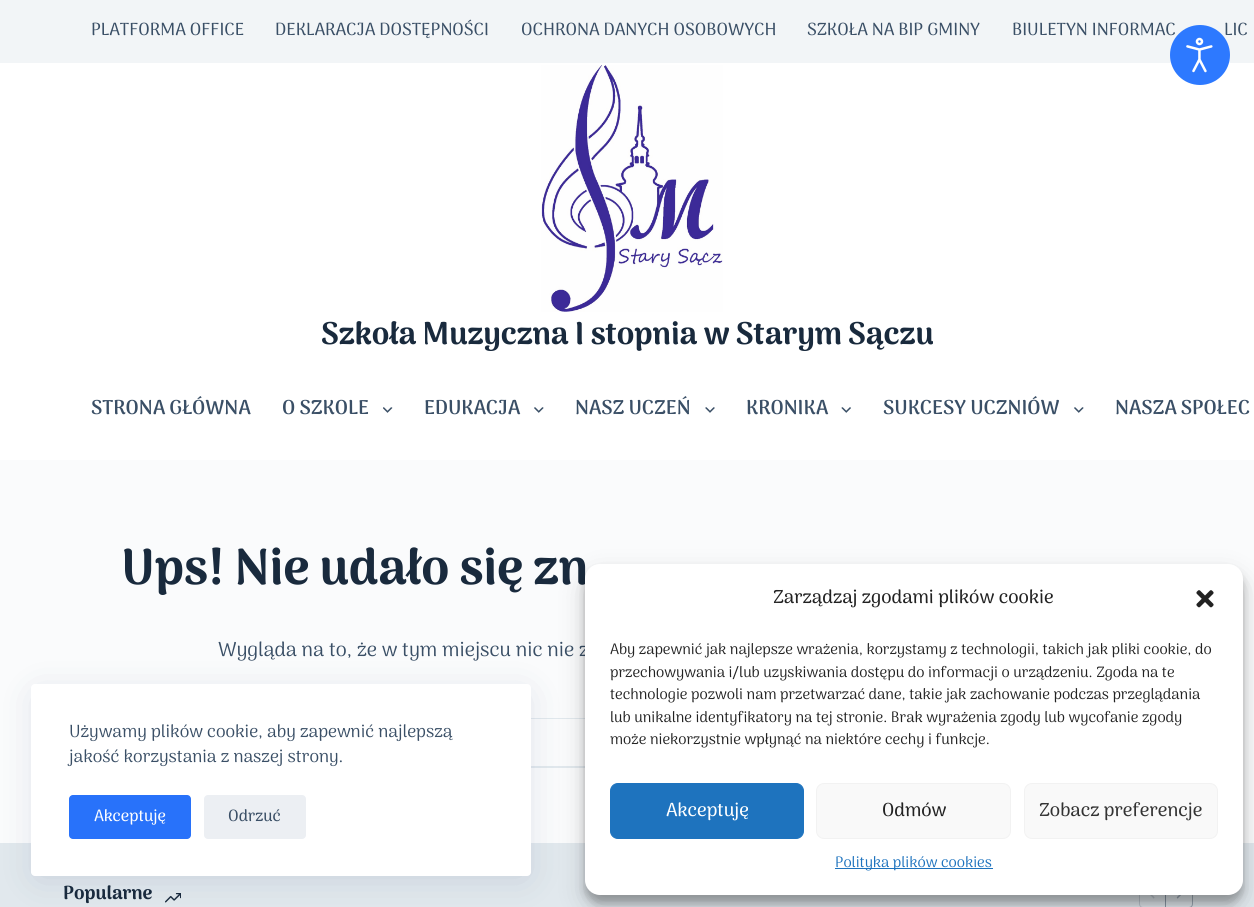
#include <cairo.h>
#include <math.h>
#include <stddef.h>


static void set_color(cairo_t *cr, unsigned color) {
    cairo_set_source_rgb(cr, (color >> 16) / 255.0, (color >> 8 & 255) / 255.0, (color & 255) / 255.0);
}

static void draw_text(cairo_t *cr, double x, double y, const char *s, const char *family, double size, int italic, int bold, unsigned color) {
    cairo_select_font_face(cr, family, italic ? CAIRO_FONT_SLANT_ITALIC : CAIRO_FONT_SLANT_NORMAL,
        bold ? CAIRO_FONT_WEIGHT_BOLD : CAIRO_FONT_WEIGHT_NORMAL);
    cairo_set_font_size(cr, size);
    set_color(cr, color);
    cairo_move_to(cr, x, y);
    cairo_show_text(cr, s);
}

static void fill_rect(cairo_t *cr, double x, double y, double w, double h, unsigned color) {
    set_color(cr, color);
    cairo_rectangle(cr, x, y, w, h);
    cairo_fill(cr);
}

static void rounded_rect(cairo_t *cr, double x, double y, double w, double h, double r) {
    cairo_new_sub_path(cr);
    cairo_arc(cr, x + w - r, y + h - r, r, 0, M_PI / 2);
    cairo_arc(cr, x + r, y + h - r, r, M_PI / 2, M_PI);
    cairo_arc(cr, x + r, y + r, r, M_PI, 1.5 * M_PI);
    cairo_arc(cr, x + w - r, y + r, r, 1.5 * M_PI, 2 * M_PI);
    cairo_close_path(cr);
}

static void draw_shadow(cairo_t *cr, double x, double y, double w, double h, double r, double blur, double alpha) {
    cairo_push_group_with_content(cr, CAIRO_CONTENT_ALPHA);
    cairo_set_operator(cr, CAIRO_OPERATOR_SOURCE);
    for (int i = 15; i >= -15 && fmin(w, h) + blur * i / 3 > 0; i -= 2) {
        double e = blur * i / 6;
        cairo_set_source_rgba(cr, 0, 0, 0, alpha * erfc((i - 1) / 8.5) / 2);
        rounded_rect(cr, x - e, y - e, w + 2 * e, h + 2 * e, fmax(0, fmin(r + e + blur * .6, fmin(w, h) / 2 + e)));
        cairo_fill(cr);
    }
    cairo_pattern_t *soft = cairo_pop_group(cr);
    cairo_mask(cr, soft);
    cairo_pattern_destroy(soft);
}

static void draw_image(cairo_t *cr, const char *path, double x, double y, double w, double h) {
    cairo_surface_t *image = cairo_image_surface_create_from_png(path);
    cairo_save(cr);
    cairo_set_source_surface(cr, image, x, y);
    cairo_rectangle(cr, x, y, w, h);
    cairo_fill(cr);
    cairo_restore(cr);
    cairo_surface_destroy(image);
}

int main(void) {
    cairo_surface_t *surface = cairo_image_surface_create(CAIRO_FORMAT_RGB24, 1254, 907);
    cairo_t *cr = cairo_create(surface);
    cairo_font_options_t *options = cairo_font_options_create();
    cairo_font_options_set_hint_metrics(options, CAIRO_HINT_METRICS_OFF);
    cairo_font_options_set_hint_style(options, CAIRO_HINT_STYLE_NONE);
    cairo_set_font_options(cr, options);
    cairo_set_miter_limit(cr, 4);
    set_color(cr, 0xFAFBFC);
    cairo_paint(cr);
    fill_rect(cr, 0, 0, 1254, 63, 0xF2F5F7);
    draw_text(cr, 91, 35, "PLATFORMA OFFICE", "Arima Medium", 17.5, 0, 0, 0x3A4F66);
    draw_text(cr, 275, 35, "DEKLARACJA DOSTĘPNOŚCI", "Arima Medium", 17.5, 0, 0, 0x3A4F66);
    draw_text(cr, 521, 35, "OCHRONA DANYCH OSOBOWYCH", "Arima Medium", 17.5, 0, 0, 0x3A4F66);
    draw_text(cr, 807, 35, "SZKOŁA NA BIP GMINY", "Arima Medium", 17.5, 0, 0, 0x3A4F66);
    draw_text(cr, 1012, 35, "BIULETYN INFORMAC", "Arima Medium", 17.5, 0, 0, 0x3A4F66);
    draw_text(cr, 1224, 35, "LIC", "Arima Medium", 17.5, 0, 0, 0x3A4F66);
    fill_rect(cr, 0, 63, 1254, 397, 0xFFFFFF);
    draw_image(cr, "assets/img1.png", 541, 65, 182, 247);
    draw_text(cr, 321, 344, "Szkoła Muzyczna I stopnia w Starym Sączu", "Arima", 31.25, 0, 1, 0x192A3D);
    draw_text(cr, 91, 414, "STRONA GŁÓWNA", "Arima SemiBold", 20, 0, 0, 0x3A4F66);
    draw_text(cr, 282, 414, "O SZKOLE", "Arima SemiBold", 20, 0, 0, 0x3A4F66);
    draw_image(cr, "assets/img2.png", 383, 407, 10, 6);
    draw_text(cr, 424, 414, "EDUKACJA", "Arima SemiBold", 20, 0, 0, 0x3A4F66);
    draw_image(cr, "assets/img3.png", 534, 407, 10, 6);
    draw_text(cr, 575, 414, "NASZ UCZEŃ", "Arima SemiBold", 20, 0, 0, 0x3A4F66);
    draw_image(cr, "assets/img4.png", 705, 407, 10, 6);
    draw_text(cr, 746, 414, "KRONIKA", "Arima SemiBold", 20, 0, 0, 0x3A4F66);
    draw_image(cr, "assets/img5.png", 841, 407, 10, 6);
    draw_text(cr, 883, 414, "SUKCESY UCZNIÓW", "Arima SemiBold", 20, 0, 0, 0x3A4F66);
    draw_image(cr, "assets/img3.png", 1074, 407, 10, 6);
    draw_text(cr, 1115, 414, "NASZA SPOŁEC", "Arima SemiBold", 20, 0, 0, 0x3A4F66);
    draw_text(cr, 121, 584, "Ups! Nie udało się zn", "Arima", 50, 0, 1, 0x192A3D);
    draw_text(cr, 218, 656, "Wygląda na to, że w tym miejscu nic nie z", "Arima", 20, 0, 0, 0x3A4F66);
    set_color(cr, 0xE1E8ED);
    cairo_set_fill_rule(cr, CAIRO_FILL_RULE_EVEN_ODD);
    cairo_new_path(cr);
    cairo_move_to(cr, 381, 718);
    cairo_line_to(cr, 828, 718);
    cairo_line_to(cr, 828, 768);
    cairo_line_to(cr, 381, 768);
    cairo_curve_to(cr, 379, 768, 378, 766, 378, 764);
    cairo_line_to(cr, 378, 721);
    cairo_curve_to(cr, 378, 719, 379, 718, 381, 718);
    cairo_close_path(cr);
    cairo_move_to(cr, 381, 719);
    cairo_line_to(cr, 828, 719);
    cairo_line_to(cr, 828, 766);
    cairo_line_to(cr, 381, 766);
    cairo_curve_to(cr, 380, 766, 379, 765, 379, 764);
    cairo_line_to(cr, 379, 721);
    cairo_curve_to(cr, 379, 720, 380, 719, 381, 719);
    cairo_close_path(cr);
    cairo_fill(cr);
    fill_rect(cr, 0, 843, 1254, 64, 0xE1E8ED);
    draw_text(cr, 63, 899, "Popularne", "Arima", 18.75, 0, 1, 0x192A3D);
    draw_image(cr, "assets/img6.png", 165, 893, 16, 10);
    cairo_new_path(cr);
    cairo_move_to(cr, 1143, 880.5);
    cairo_line_to(cr, 1165.5, 880.5);
    cairo_line_to(cr, 1165.5, 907.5);
    cairo_line_to(cr, 1143, 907.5);
    cairo_curve_to(cr, 1141, 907.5, 1139.5, 906, 1139.5, 904);
    cairo_line_to(cr, 1139.5, 884);
    cairo_curve_to(cr, 1139.5, 882, 1141, 880.5, 1143, 880.5);
    cairo_close_path(cr);
    set_color(cr, 0xC0C9D2);
    cairo_set_line_width(cr, 1);
    cairo_stroke(cr);
    draw_image(cr, "assets/img7.png", 1150, 895, 5, 4);
    cairo_new_path(cr);
    cairo_move_to(cr, 1165.5, 880.5);
    cairo_line_to(cr, 1189, 880.5);
    cairo_curve_to(cr, 1191, 880.5, 1192.5, 882, 1192.5, 884);
    cairo_line_to(cr, 1192.5, 904);
    cairo_curve_to(cr, 1192.5, 906, 1191, 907.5, 1189, 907.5);
    cairo_line_to(cr, 1165.5, 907.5);
    cairo_close_path(cr);
    cairo_set_source_rgba(cr, 0.227, 0.31, 0.4, 0.4);
    cairo_stroke(cr);
    draw_image(cr, "assets/img8.png", 1176, 895, 5, 4);
    set_color(cr, 0x2D79FF);
    cairo_arc(cr, 1200, 55, 30, 0, 2 * M_PI);
    cairo_fill(cr);
    draw_image(cr, "assets/img9.png", 1186, 37, 27, 36);
    set_color(cr, 0x223865);
    draw_shadow(cr, 38, 696, 487, 180, 0, 19, 0.15);
    set_color(cr, 0xFFFFFF);
    rounded_rect(cr, 31, 684, 500, 192, 4);
    cairo_fill(cr);
    draw_text(cr, 69, 737, "Używamy plików cookie, aby zapewnić najlepszą", "Arima", 17.5, 0, 0, 0x3A4F66);
    draw_text(cr, 69, 762, "jakość korzystania z naszej strony.", "Arima", 17.5, 0, 0, 0x3A4F66);
    set_color(cr, 0x2872FA);
    rounded_rect(cr, 69, 795, 122, 44, 4);
    cairo_fill(cr);
    draw_text(cr, 94, 821, "Akceptuję", "Arima Medium", 16.25, 0, 0, 0xFFFFFF);
    set_color(cr, 0xECEFF3);
    rounded_rect(cr, 204, 795, 102, 44, 4);
    cairo_fill(cr);
    draw_text(cr, 228, 821, "Odrzuć", "Arima Medium", 16.25, 0, 0, 0x3A4F66);
    set_color(cr, 0x000000);
    draw_shadow(cr, 585, 571, 658, 332, 15, 4, 0.23);
    draw_shadow(cr, 585, 576, 658, 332, 15, 12.5, 0.19);
    set_color(cr, 0xFFFFFF);
    rounded_rect(cr, 585, 564, 658, 331, 15);
    cairo_fill(cr);
    draw_text(cr, 773, 603, "Zarządzaj zgodami plików cookie", "Arima Medium", 18.75, 0, 0, 0x222222);
    draw_image(cr, "assets/img10.png", 1196, 590, 18, 18);
    draw_text(cr, 610, 654, "Aby zapewnić jak najlepsze wrażenia, korzystamy z technologii, takich jak pliki cookie, do", "Arima", 15, 0, 0, 0x222222);
    draw_text(cr, 610, 677, "przechowywania i/lub uzyskiwania dostępu do informacji o urządzeniu. Zgoda na te", "Arima", 15, 0, 0, 0x222222);
    draw_text(cr, 610, 699, "technologie pozwoli nam przetwarzać dane, takie jak zachowanie podczas przeglądania", "Arima", 15, 0, 0, 0x222222);
    draw_text(cr, 610, 722, "lub unikalne identyfikatory na tej stronie. Brak wyrażenia zgody lub wycofanie zgody", "Arima", 15, 0, 0, 0x222222);
    draw_text(cr, 610, 744, "może niekorzystnie wpłynąć na niektóre cechy i funkcje.", "Arima", 15, 0, 0, 0x222222);
    set_color(cr, 0x1E73BE);
    rounded_rect(cr, 610.5, 783.5, 193, 55, 7.5);
    cairo_fill_preserve(cr);
    cairo_stroke(cr);
    draw_text(cr, 666, 816, "Akceptuję", "Arima Medium", 18.75, 0, 0, 0xFFFFFF);
    set_color(cr, 0xF9F9F9);
    rounded_rect(cr, 816.5, 783.5, 194, 55, 7.5);
    cairo_fill_preserve(cr);
    set_color(cr, 0xF2F2F2);
    cairo_stroke(cr);
    draw_text(cr, 882, 816, "Odmów", "Arima Medium", 18.75, 0, 0, 0x222222);
    set_color(cr, 0xF9F9F9);
    rounded_rect(cr, 1024.5, 783.5, 193, 55, 7.5);
    cairo_fill_preserve(cr);
    set_color(cr, 0xF2F2F2);
    cairo_stroke(cr);
    draw_text(cr, 1039, 816, "Zobacz preferencje", "Arima Medium", 18.75, 0, 0, 0x333333);
    fill_rect(cr, 835, 868, 158, 1, 0x1E73BE);
    draw_text(cr, 835, 867, "Polityka plików cookies", "Arima", 15, 0, 0, 0x1E73BE);
    cairo_surface_write_to_png(surface, "output.png");
    cairo_font_options_destroy(options);
    cairo_destroy(cr);
    cairo_surface_destroy(surface);
    return 0;
}
